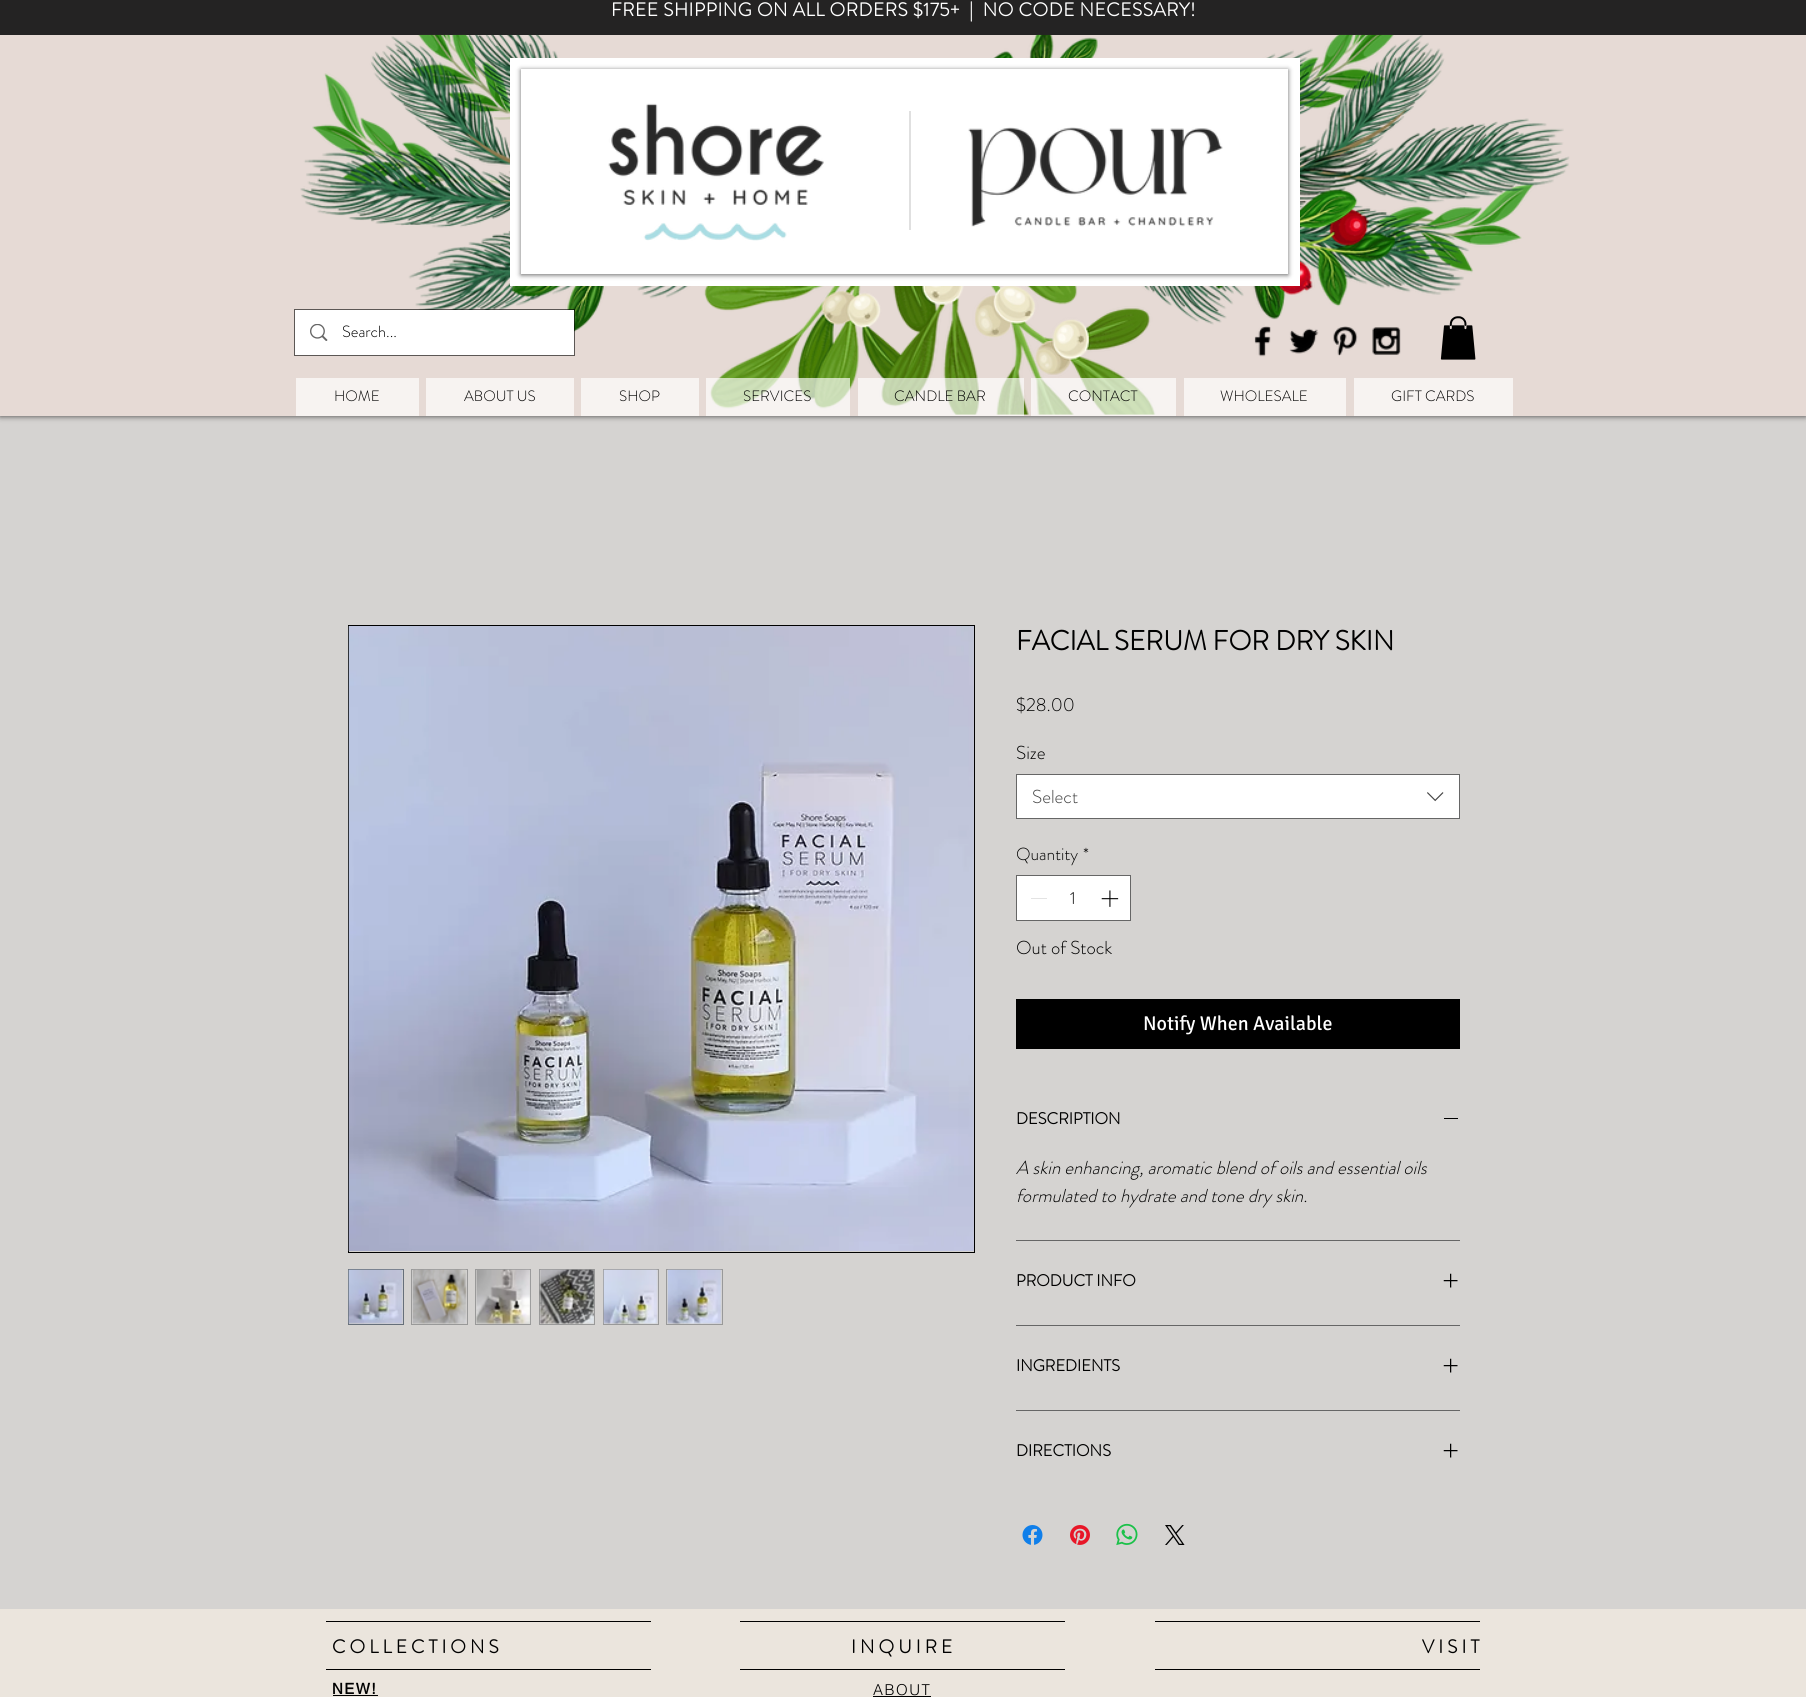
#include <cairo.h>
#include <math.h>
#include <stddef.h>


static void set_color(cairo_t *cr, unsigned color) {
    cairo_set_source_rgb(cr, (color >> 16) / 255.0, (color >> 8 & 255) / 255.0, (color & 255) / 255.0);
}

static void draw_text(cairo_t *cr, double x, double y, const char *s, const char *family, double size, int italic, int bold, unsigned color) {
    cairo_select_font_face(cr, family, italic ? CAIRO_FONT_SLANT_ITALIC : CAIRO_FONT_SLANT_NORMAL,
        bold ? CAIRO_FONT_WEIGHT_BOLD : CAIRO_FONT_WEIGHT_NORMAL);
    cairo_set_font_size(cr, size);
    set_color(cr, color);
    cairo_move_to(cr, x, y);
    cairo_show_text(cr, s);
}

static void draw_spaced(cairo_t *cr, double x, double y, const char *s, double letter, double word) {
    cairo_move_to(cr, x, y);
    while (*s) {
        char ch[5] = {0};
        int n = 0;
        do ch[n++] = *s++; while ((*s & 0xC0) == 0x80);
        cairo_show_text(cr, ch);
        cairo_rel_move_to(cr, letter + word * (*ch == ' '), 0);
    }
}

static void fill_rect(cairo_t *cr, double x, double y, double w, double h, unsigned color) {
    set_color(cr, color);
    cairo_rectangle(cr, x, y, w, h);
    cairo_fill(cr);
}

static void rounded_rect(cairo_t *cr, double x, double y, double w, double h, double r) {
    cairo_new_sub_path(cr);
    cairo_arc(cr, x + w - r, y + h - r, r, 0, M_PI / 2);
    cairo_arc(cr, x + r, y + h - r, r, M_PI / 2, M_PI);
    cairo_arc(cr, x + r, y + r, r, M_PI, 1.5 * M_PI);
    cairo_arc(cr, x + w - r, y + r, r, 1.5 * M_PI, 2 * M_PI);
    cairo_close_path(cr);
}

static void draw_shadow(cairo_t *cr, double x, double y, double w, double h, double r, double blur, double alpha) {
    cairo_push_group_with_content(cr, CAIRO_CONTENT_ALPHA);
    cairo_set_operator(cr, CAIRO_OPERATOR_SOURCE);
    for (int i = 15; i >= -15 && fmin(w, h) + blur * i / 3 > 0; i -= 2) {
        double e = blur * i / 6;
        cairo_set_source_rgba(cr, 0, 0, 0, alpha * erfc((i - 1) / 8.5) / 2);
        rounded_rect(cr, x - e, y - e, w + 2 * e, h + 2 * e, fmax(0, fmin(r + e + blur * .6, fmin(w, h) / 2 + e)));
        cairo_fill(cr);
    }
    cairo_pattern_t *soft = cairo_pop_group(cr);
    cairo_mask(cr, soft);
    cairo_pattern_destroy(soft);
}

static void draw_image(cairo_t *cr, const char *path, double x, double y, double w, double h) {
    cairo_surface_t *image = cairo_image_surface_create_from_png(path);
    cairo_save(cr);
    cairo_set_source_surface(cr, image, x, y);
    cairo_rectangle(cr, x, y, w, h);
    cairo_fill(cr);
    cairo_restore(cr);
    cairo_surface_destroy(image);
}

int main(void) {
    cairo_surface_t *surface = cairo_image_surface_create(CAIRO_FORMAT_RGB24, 1806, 1697);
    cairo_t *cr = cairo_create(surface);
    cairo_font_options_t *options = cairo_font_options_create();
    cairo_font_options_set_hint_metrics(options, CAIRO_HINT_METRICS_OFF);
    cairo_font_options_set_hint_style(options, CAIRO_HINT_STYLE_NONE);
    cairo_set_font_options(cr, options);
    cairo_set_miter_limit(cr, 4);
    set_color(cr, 0xD5D3D1);
    cairo_paint(cr);
    set_color(cr, 0x000000);
    draw_shadow(cr, 0, -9, 1806, 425, 0, 3, 0.7);
    fill_rect(cr, 0, 35, 1806, 381, 0xE6DAD5);
    fill_rect(cr, 0, 0, 1806, 35, 0x242323);
    cairo_select_font_face(cr, "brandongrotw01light", CAIRO_FONT_SLANT_NORMAL, CAIRO_FONT_WEIGHT_BOLD);
    cairo_set_font_size(cr, 18.75);
    set_color(cr, 0xFFFFFF);
    draw_spaced(cr, 611, 16, "FREE SHIPPING ON ALL ORDERS $175+  |  NO CODE NECESSARY!", 0.55, 0);
    draw_image(cr, "assets/img1.png", 300, 34, 1270, 381);
    fill_rect(cr, 510, 58, 790, 228, 0xFFFFFF);
    set_color(cr, 0x000000);
    draw_shadow(cr, 521, 70, 767, 205, 0, 2.5, 0.6);
    fill_rect(cr, 521, 69, 767, 205, 0xFFFFFF);
    draw_image(cr, "assets/img2.png", 608, 103, 216, 138);
    fill_rect(cr, 909, 111, 2, 119, 0xE0E0E0);
    draw_image(cr, "assets/img3.png", 968, 127, 255, 100);
    cairo_rectangle(cr, 294.5, 309.5, 280, 46);
    cairo_set_source_rgba(cr, 0, 0, 0, 0.6);
    cairo_set_line_width(cr, 1);
    cairo_stroke(cr);
    fill_rect(cr, 295, 310, 279, 45, 0xFFFFFF);
    draw_image(cr, "assets/img4.png", 310, 324, 18, 17);
    draw_text(cr, 342, 337, "Search...", "brandongrotw01light Light", 16.25, 0, 0, 0x000000);
    draw_image(cr, "assets/img5.png", 1254, 326, 17, 31);
    draw_image(cr, "assets/img6.png", 1289, 328, 30, 26);
    draw_image(cr, "assets/img7.png", 1333, 326, 25, 30);
    draw_image(cr, "assets/img8.png", 1372, 327, 29, 28);
    draw_image(cr, "assets/img9.png", 1440, 316, 36, 44);
    fill_rect(cr, 296, 378, 123, 38, 0xF7F3F1);
    draw_text(cr, 334, 401, "HOME", "brandongrotw01light Light", 15, 0, 0, 0x000000);
    fill_rect(cr, 426, 378, 148, 38, 0xF7F3F1);
    draw_text(cr, 464, 401, "ABOUT US", "brandongrotw01light Light", 15, 0, 0, 0x000000);
    fill_rect(cr, 581, 378, 118, 38, 0xF7F3F1);
    draw_text(cr, 619, 401, "SHOP", "brandongrotw01light Light", 15, 0, 0, 0x000000);
    cairo_set_source_rgba(cr, 1, 1, 1, 0.67);
    cairo_rectangle(cr, 706, 378, 144, 38);
    cairo_fill(cr);
    draw_text(cr, 743, 401, "SERVICES", "brandongrotw01light Light", 15, 0, 0, 0x000000);
    cairo_set_source_rgba(cr, 1, 1, 1, 0.67);
    cairo_rectangle(cr, 858, 378, 166, 38);
    cairo_fill(cr);
    draw_text(cr, 894, 401, "CANDLE BAR", "brandongrotw01light Light", 15, 0, 0, 0x000000);
    cairo_set_source_rgba(cr, 1, 1, 1, 0.67);
    cairo_rectangle(cr, 1031, 378, 145, 38);
    cairo_fill(cr);
    draw_text(cr, 1068, 401, "CONTACT", "brandongrotw01light Light", 15, 0, 0, 0x000000);
    fill_rect(cr, 1184, 378, 162, 38, 0xF7F3F1);
    draw_text(cr, 1220, 401, "WHOLESALE", "brandongrotw01light Light", 15, 0, 0, 0x000000);
    fill_rect(cr, 1354, 378, 159, 38, 0xF7F3F1);
    draw_text(cr, 1391, 401, "GIFT CARDS", "brandongrotw01light Light", 15, 0, 0, 0x000000);
    cairo_rectangle(cr, 348.5, 625.5, 626, 627);
    cairo_stroke(cr);
    draw_image(cr, "assets/img10.png", 348, 626, 626, 625);
    cairo_rectangle(cr, 348.5, 1269.5, 55, 55);
    set_color(cr, 0x666F7A);
    cairo_stroke(cr);
    draw_image(cr, "assets/img11.png", 348, 1269, 55, 55);
    cairo_rectangle(cr, 411.5, 1269.5, 56, 55);
    set_color(cr, 0x999999);
    cairo_stroke(cr);
    draw_image(cr, "assets/img12.png", 412, 1269, 55, 55);
    cairo_rectangle(cr, 475.5, 1269.5, 55, 55);
    cairo_stroke(cr);
    draw_image(cr, "assets/img13.png", 476, 1269, 55, 55);
    cairo_rectangle(cr, 539.5, 1269.5, 55, 55);
    cairo_stroke(cr);
    draw_image(cr, "assets/img14.png", 539, 1269, 55, 55);
    cairo_rectangle(cr, 603.5, 1269.5, 55, 55);
    cairo_stroke(cr);
    draw_image(cr, "assets/img15.png", 603, 1269, 55, 55);
    cairo_rectangle(cr, 666.5, 1269.5, 56, 55);
    cairo_stroke(cr);
    draw_image(cr, "assets/img16.png", 667, 1269, 55, 55);
    draw_text(cr, 1016, 650, "FACIAL SERUM FOR DRY SKIN", "brandongrotw01light", 27.5, 0, 1, 0x000000);
    draw_text(cr, 1016, 711, "$28.00", "brandongrotw01light Light", 18.75, 0, 0, 0x000000);
    draw_text(cr, 1016, 759, "Size", "brandongrotw01light Light", 18.75, 0, 0, 0x000000);
    set_color(cr, 0xFFFFFF);
    cairo_rectangle(cr, 1016.5, 774.5, 443, 44);
    cairo_fill_preserve(cr);
    set_color(cr, 0x666666);
    cairo_stroke(cr);
    draw_text(cr, 1032, 803, "Select", "brandongrotw01light Light", 18.75, 0, 0, 0x444444);
    draw_image(cr, "assets/img17.png", 1427, 792, 17, 10);
    draw_text(cr, 1016, 860, "Quantity", "brandongrotw01light Light", 17.5, 0, 0, 0x000000);
    draw_text(cr, 1083, 860, "*", "brandongrotw01light Light", 17.5, 0, 0, 0x000000);
    set_color(cr, 0xFFFFFF);
    cairo_rectangle(cr, 1016.5, 875.5, 114, 45);
    cairo_fill_preserve(cr);
    set_color(cr, 0x666666);
    cairo_stroke(cr);
    fill_rect(cr, 1031, 898, 16, 1, 0xE3E3E3);
    draw_text(cr, 1070, 904, "1", "brandongrotw01light Light", 17.5, 0, 0, 0x000000);
    draw_image(cr, "assets/img18.png", 1101, 890, 18, 17);
    draw_text(cr, 1016, 954, "Out of Stock", "brandongrotw01light Light", 18.75, 0, 0, 0x000000);
    fill_rect(cr, 1016, 999, 444, 50, 0x000000);
    draw_text(cr, 1143, 1030, "Notify When Available", "Signika", 20, 0, 0, 0xFFFFFF);
    fill_rect(cr, 1016, 1240, 444, 1, 0x666666);
    draw_text(cr, 1016, 1124, "DESCRIPTION", "brandongrotw01light", 16.25, 0, 1, 0x000000);
    fill_rect(cr, 1444, 1118, 14, 1, 0x000000);
    draw_text(cr, 1016, 1174, "A skin enhancing, aromatic blend of oils and essential oils", "brandongrotw01light Light", 18.75, 1, 0, 0x000000);
    draw_text(cr, 1016, 1202, "formulated to hydrate and tone dry skin.", "brandongrotw01light Light", 18.75, 1, 0, 0x000000);
    fill_rect(cr, 1016, 1325, 444, 1, 0x666666);
    draw_text(cr, 1016, 1286, "PRODUCT INFO", "brandongrotw01light", 16.25, 0, 1, 0x000000);
    draw_image(cr, "assets/img19.png", 1443, 1273, 15, 15);
    fill_rect(cr, 1016, 1410, 444, 1, 0x666666);
    draw_text(cr, 1016, 1371, "INGREDIENTS", "brandongrotw01light", 16.25, 0, 1, 0x000000);
    draw_image(cr, "assets/img19.png", 1443, 1358, 15, 15);
    draw_text(cr, 1016, 1456, "DIRECTIONS", "brandongrotw01light", 16.25, 0, 1, 0x000000);
    draw_image(cr, "assets/img19.png", 1443, 1443, 15, 15);
    draw_image(cr, "assets/img20.png", 1022, 1525, 21, 20);
    draw_image(cr, "assets/img21.png", 1070, 1525, 20, 20);
    draw_image(cr, "assets/img22.png", 1116, 1523, 22, 23);
    draw_image(cr, "assets/img23.png", 1165, 1525, 20, 20);
    fill_rect(cr, 0, 1609, 1806, 88, 0xEBE5DD);
    fill_rect(cr, 326, 1621, 325, 1, 0x000000);
    fill_rect(cr, 740, 1621, 325, 1, 0x000000);
    fill_rect(cr, 1155, 1621, 325, 1, 0x000000);
    draw_text(cr, 332, 1653, "C O L L E C T I O N S", "brandongrotw01light", 18.75, 0, 1, 0x000000);
    cairo_select_font_face(cr, "helvetica", CAIRO_FONT_SLANT_NORMAL, CAIRO_FONT_WEIGHT_BOLD);
    cairo_set_font_size(cr, 15);
    draw_spaced(cr, 332, 1694, "NEW!", 1.5, 0);
    fill_rect(cr, 333, 1695, 45, 1, 0x000000);
    draw_text(cr, 851, 1653, "I N Q U I R E", "brandongrotw01light", 18.75, 0, 1, 0x000000);
    cairo_select_font_face(cr, "helvetica Light", CAIRO_FONT_SLANT_NORMAL, CAIRO_FONT_WEIGHT_NORMAL);
    cairo_set_font_size(cr, 15);
    draw_spaced(cr, 873, 1695, "ABOUT", 1.5, 0);
    fill_rect(cr, 873, 1696, 58, 1, 0x000000);
    draw_text(cr, 1422, 1653, "V I S I T", "brandongrotw01light", 18.75, 0, 1, 0x000000);
    fill_rect(cr, 326, 1669, 325, 1, 0x000000);
    fill_rect(cr, 740, 1669, 325, 1, 0x000000);
    fill_rect(cr, 1155, 1669, 325, 1, 0x000000);
    cairo_surface_write_to_png(surface, "output.png");
    cairo_font_options_destroy(options);
    cairo_destroy(cr);
    cairo_surface_destroy(surface);
    return 0;
}
